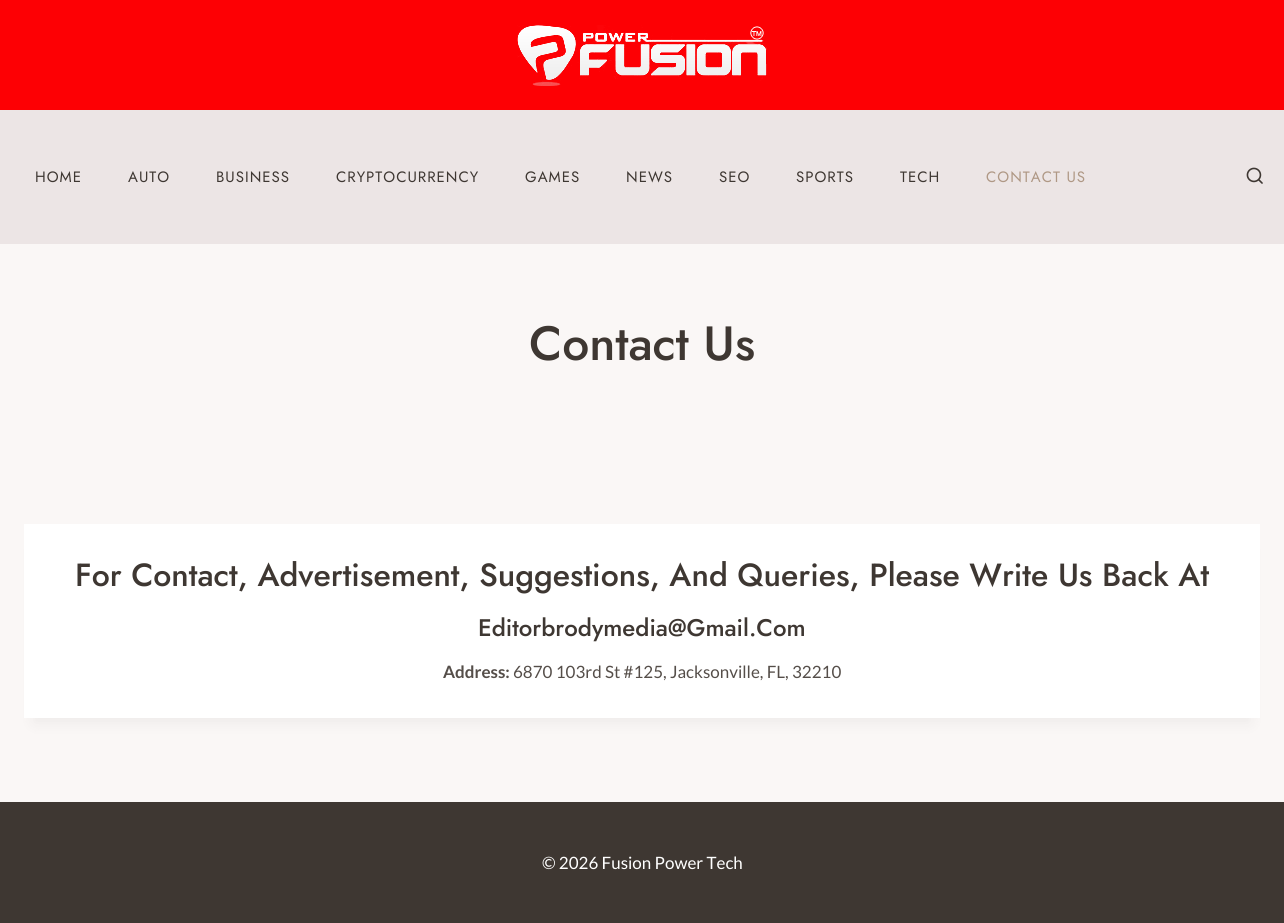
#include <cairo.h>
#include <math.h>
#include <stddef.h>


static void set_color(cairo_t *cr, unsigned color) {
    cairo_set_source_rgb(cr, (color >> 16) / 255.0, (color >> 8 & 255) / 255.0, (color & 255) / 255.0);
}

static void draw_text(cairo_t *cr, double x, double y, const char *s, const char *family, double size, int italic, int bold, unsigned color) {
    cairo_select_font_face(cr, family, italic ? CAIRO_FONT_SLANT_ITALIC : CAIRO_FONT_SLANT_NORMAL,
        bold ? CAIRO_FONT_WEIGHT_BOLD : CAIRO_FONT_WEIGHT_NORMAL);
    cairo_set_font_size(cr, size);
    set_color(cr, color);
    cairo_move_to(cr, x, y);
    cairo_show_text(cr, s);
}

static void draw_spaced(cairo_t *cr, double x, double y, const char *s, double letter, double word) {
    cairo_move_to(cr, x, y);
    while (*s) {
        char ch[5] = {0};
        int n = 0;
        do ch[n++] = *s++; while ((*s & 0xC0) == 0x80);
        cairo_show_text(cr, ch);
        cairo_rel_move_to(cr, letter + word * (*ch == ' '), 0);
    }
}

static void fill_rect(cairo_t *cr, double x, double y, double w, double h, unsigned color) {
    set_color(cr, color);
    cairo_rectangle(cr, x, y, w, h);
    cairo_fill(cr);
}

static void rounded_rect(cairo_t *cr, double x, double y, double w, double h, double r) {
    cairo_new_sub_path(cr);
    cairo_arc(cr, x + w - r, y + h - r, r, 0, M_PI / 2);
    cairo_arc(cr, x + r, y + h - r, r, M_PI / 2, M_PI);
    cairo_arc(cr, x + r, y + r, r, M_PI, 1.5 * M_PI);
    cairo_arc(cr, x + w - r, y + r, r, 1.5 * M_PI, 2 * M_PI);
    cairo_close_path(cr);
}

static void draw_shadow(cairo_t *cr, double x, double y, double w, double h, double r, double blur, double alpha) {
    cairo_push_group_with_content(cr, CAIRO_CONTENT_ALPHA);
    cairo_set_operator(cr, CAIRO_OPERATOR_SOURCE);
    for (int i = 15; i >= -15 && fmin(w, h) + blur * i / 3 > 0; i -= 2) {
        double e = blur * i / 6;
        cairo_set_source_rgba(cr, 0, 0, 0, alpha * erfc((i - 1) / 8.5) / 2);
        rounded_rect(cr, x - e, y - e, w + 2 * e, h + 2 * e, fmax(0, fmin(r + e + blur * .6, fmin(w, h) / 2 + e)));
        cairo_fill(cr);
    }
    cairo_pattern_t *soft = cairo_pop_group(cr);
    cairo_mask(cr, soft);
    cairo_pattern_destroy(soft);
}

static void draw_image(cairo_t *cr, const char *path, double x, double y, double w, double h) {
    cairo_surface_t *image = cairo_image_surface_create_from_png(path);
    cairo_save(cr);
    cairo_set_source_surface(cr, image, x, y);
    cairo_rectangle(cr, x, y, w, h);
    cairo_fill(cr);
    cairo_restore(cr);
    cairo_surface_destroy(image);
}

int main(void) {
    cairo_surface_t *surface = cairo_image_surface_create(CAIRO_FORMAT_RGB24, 1284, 923);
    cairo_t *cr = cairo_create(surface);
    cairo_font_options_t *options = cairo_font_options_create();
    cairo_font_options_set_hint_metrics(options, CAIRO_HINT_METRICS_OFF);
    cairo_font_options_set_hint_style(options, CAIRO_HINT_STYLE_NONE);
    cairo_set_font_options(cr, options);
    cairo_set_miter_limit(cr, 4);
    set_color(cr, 0xFAF7F6);
    cairo_paint(cr);
    fill_rect(cr, 0, 0, 1284, 110, 0xFD0004);
    draw_image(cr, "assets/img1.png", 517, 25, 250, 61);
    fill_rect(cr, 0, 110, 1284, 134, 0xECE5E5);
    cairo_select_font_face(cr, "Jost", CAIRO_FONT_SLANT_NORMAL, CAIRO_FONT_WEIGHT_NORMAL);
    cairo_set_font_size(cr, 15);
    set_color(cr, 0x3E3732);
    draw_spaced(cr, 35, 182, "HOME", 1, 0);
    draw_spaced(cr, 128, 182, "AUTO", 1, 0);
    draw_spaced(cr, 216, 182, "BUSINESS", 1, 0);
    draw_spaced(cr, 336, 182, "CRYPTOCURRENCY", 1, 0);
    draw_spaced(cr, 525, 182, "GAMES", 1, 0);
    draw_spaced(cr, 626, 182, "NEWS", 1, 0);
    draw_spaced(cr, 719, 182, "SEO", 1, 0);
    draw_spaced(cr, 796, 182, "SPORTS", 1, 0);
    draw_spaced(cr, 900, 182, "TECH", 1, 0);
    set_color(cr, 0xAF9885);
    draw_spaced(cr, 986, 182, "CONTACT US", 1, 0);
    draw_image(cr, "assets/img2.png", 1246, 167, 17, 17);
    draw_text(cr, 529, 360, "Contact Us", "Jost Medium", 48, 0, 0, 0x3E3732);
    set_color(cr, 0x000000);
    draw_shadow(cr, 34, 549, 1216, 174, 0, 7.5, 0.05);
    fill_rect(cr, 24, 524, 1236, 194, 0xFFFFFF);
    draw_text(cr, 75, 586, "For Contact, Advertisement, Suggestions, And Queries, Please Write Us Back At", "Jost Medium", 32, 0, 0, 0x3E3732);
    draw_text(cr, 478, 636, "Editorbrodymedia@Gmail.Com", "Jost Medium", 24, 0, 0, 0x3E3732);
    draw_text(cr, 443, 678, "Address:", "Lato", 17, 0, 1, 0x554E49);
    draw_text(cr, 513, 678, "6870 103rd St #125, Jacksonville, FL, 32210", "Lato", 17, 0, 0, 0x554E49);
    fill_rect(cr, 0, 802, 1284, 121, 0x3E3732);
    draw_text(cr, 542, 869, "© 2026 Fusion Power Tech", "Lato", 17, 0, 0, 0xFFFFFF);
    cairo_surface_write_to_png(surface, "output.png");
    cairo_font_options_destroy(options);
    cairo_destroy(cr);
    cairo_surface_destroy(surface);
    return 0;
}
